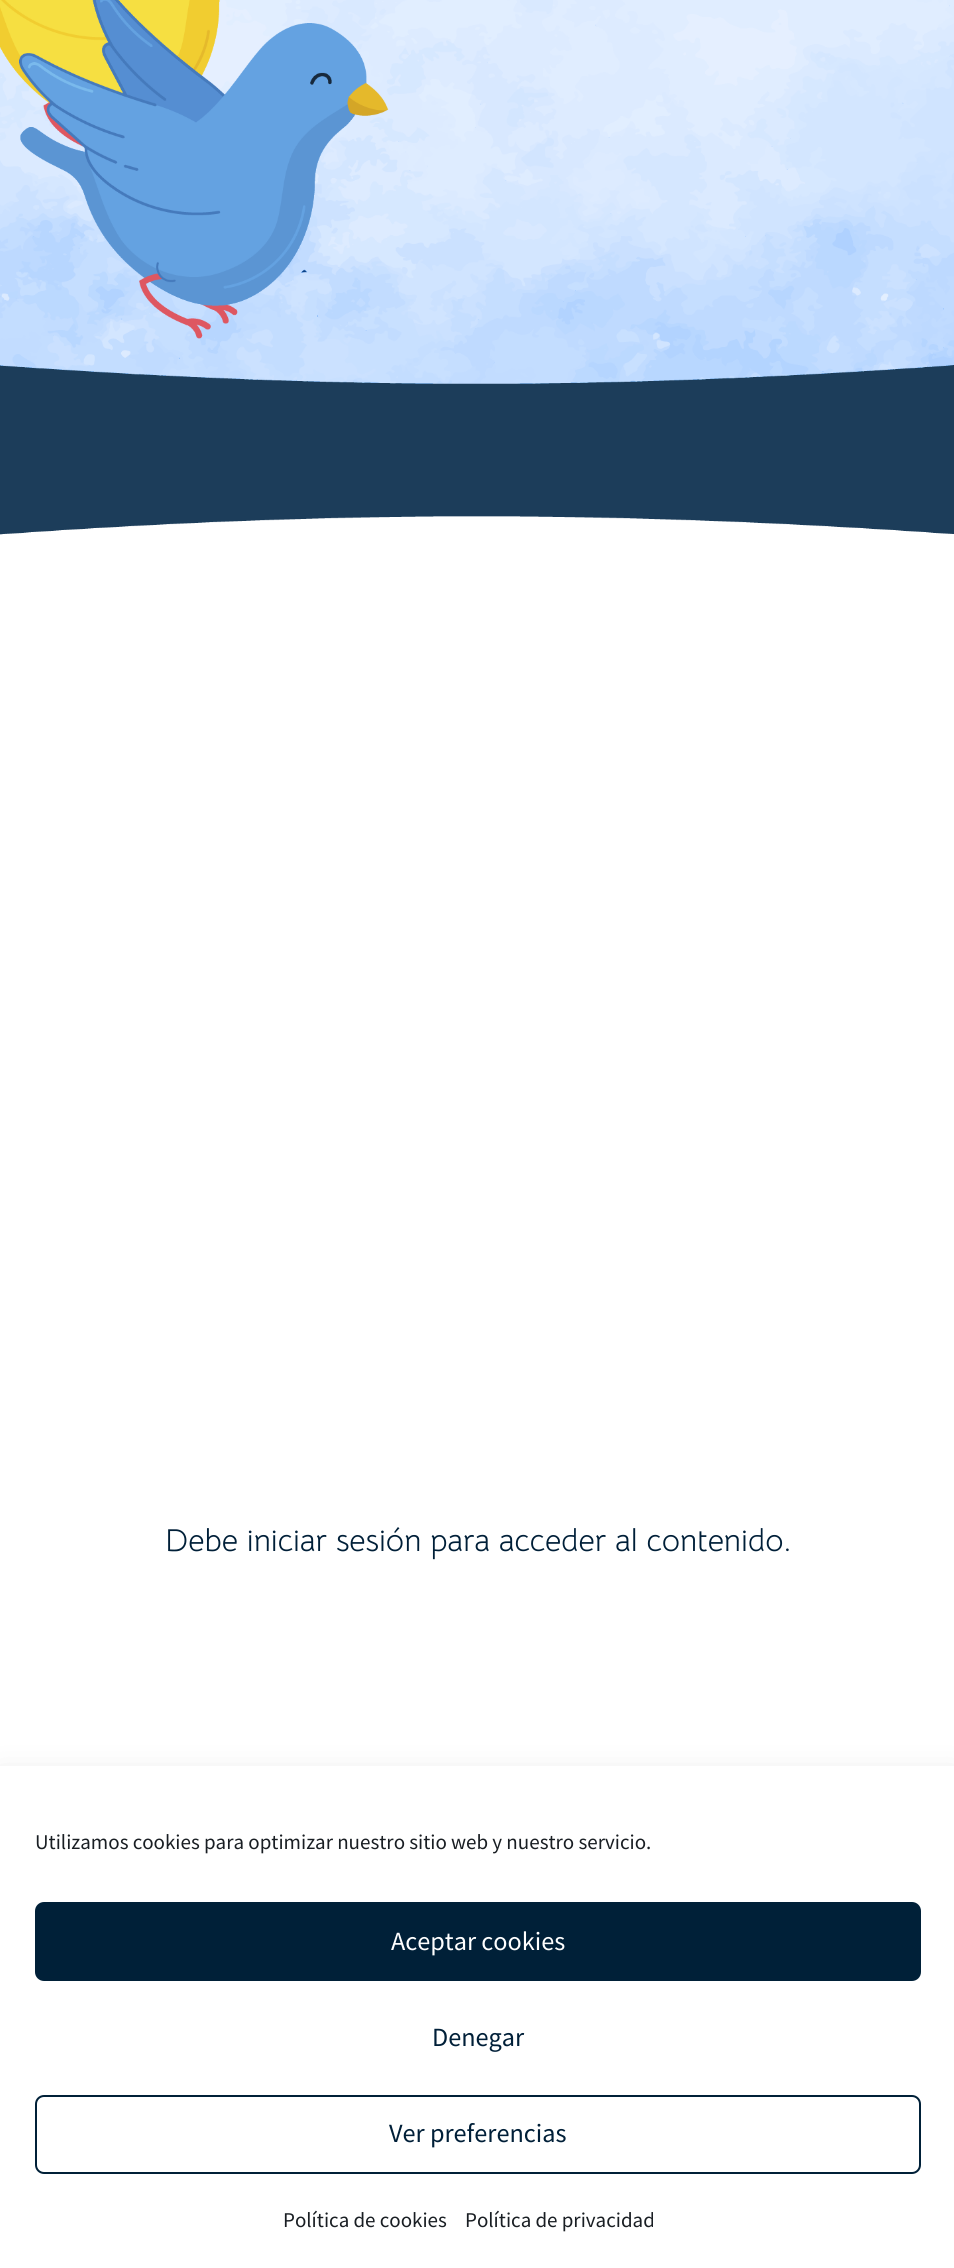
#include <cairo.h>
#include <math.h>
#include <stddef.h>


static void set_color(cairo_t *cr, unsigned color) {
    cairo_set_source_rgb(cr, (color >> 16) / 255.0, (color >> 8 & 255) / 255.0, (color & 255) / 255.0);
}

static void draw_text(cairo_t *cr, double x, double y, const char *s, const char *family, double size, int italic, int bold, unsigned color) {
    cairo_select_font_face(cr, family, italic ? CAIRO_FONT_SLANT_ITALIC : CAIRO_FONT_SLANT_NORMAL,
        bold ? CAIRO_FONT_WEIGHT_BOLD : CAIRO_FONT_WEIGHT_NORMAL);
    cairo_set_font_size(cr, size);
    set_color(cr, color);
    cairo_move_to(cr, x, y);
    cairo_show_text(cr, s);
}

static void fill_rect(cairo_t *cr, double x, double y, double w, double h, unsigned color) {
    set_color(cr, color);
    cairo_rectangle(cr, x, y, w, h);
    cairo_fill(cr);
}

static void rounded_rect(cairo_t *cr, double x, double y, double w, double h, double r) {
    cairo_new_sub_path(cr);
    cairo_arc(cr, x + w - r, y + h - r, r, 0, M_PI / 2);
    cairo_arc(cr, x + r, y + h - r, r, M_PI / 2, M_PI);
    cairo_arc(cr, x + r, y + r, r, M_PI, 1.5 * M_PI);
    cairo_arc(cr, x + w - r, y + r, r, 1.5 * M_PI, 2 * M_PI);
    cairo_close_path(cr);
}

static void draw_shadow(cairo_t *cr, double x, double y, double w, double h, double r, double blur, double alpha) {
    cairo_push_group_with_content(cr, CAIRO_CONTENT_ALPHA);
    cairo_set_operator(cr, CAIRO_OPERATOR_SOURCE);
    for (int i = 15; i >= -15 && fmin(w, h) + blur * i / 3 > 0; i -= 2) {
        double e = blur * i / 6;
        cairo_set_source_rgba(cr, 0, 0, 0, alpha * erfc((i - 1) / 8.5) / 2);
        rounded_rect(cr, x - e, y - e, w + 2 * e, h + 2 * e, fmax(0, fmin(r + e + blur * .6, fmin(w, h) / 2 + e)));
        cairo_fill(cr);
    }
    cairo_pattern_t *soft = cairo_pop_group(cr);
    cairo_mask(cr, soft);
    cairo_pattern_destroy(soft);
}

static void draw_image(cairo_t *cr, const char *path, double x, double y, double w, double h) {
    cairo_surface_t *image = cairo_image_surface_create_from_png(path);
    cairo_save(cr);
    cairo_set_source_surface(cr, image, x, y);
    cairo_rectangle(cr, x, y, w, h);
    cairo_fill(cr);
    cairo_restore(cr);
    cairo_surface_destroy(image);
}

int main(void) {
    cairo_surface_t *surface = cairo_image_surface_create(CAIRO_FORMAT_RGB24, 954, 2268);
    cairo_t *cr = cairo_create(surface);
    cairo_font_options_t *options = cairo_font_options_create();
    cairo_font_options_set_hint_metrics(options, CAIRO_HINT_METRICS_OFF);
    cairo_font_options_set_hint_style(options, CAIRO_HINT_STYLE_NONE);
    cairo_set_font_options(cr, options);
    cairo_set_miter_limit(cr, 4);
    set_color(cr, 0xFFFFFF);
    cairo_paint(cr);
    draw_image(cr, "assets/img1.png", 0, 0, 954, 535);
    draw_text(cr, 165, 1551, "Debe iniciar sesión para acceder al contenido.", "Bellota Text", 31.5, 0, 0, 0x001F38);
    set_color(cr, 0x000000);
    draw_shadow(cr, 0, 1783, 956, 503, 0, 17.5, 0.19);
    fill_rect(cr, 0, 1766, 954, 502, 0xFFFFFF);
    draw_text(cr, 35, 1849, "Utilizamos cookies para optimizar nuestro sitio web y nuestro servicio.", "Source Sans Pro", 21, 0, 0, 0x191E23);
    set_color(cr, 0x002038);
    rounded_rect(cr, 36, 1903, 884, 77, 8);
    cairo_fill_preserve(cr);
    cairo_stroke(cr);
    draw_text(cr, 391, 1950, "Aceptar cookies", "Source Sans Pro", 26.25, 0, 0, 0xFFFFFF);
    draw_text(cr, 432, 2046, "Denegar", "Source Sans Pro", 26.25, 0, 0, 0x001F38);
    rounded_rect(cr, 36, 2096, 884, 77, 8);
    set_color(cr, 0x002038);
    cairo_stroke(cr);
    draw_text(cr, 389, 2142, "Ver preferencias", "Source Sans Pro", 26.25, 0, 0, 0x001F38);
    draw_text(cr, 283, 2227, "Política de cookies", "Source Sans Pro", 21, 0, 0, 0x191E23);
    draw_text(cr, 465, 2227, "Política de privacidad", "Source Sans Pro", 21, 0, 0, 0x191E23);
    cairo_surface_write_to_png(surface, "output.png");
    cairo_font_options_destroy(options);
    cairo_destroy(cr);
    cairo_surface_destroy(surface);
    return 0;
}
